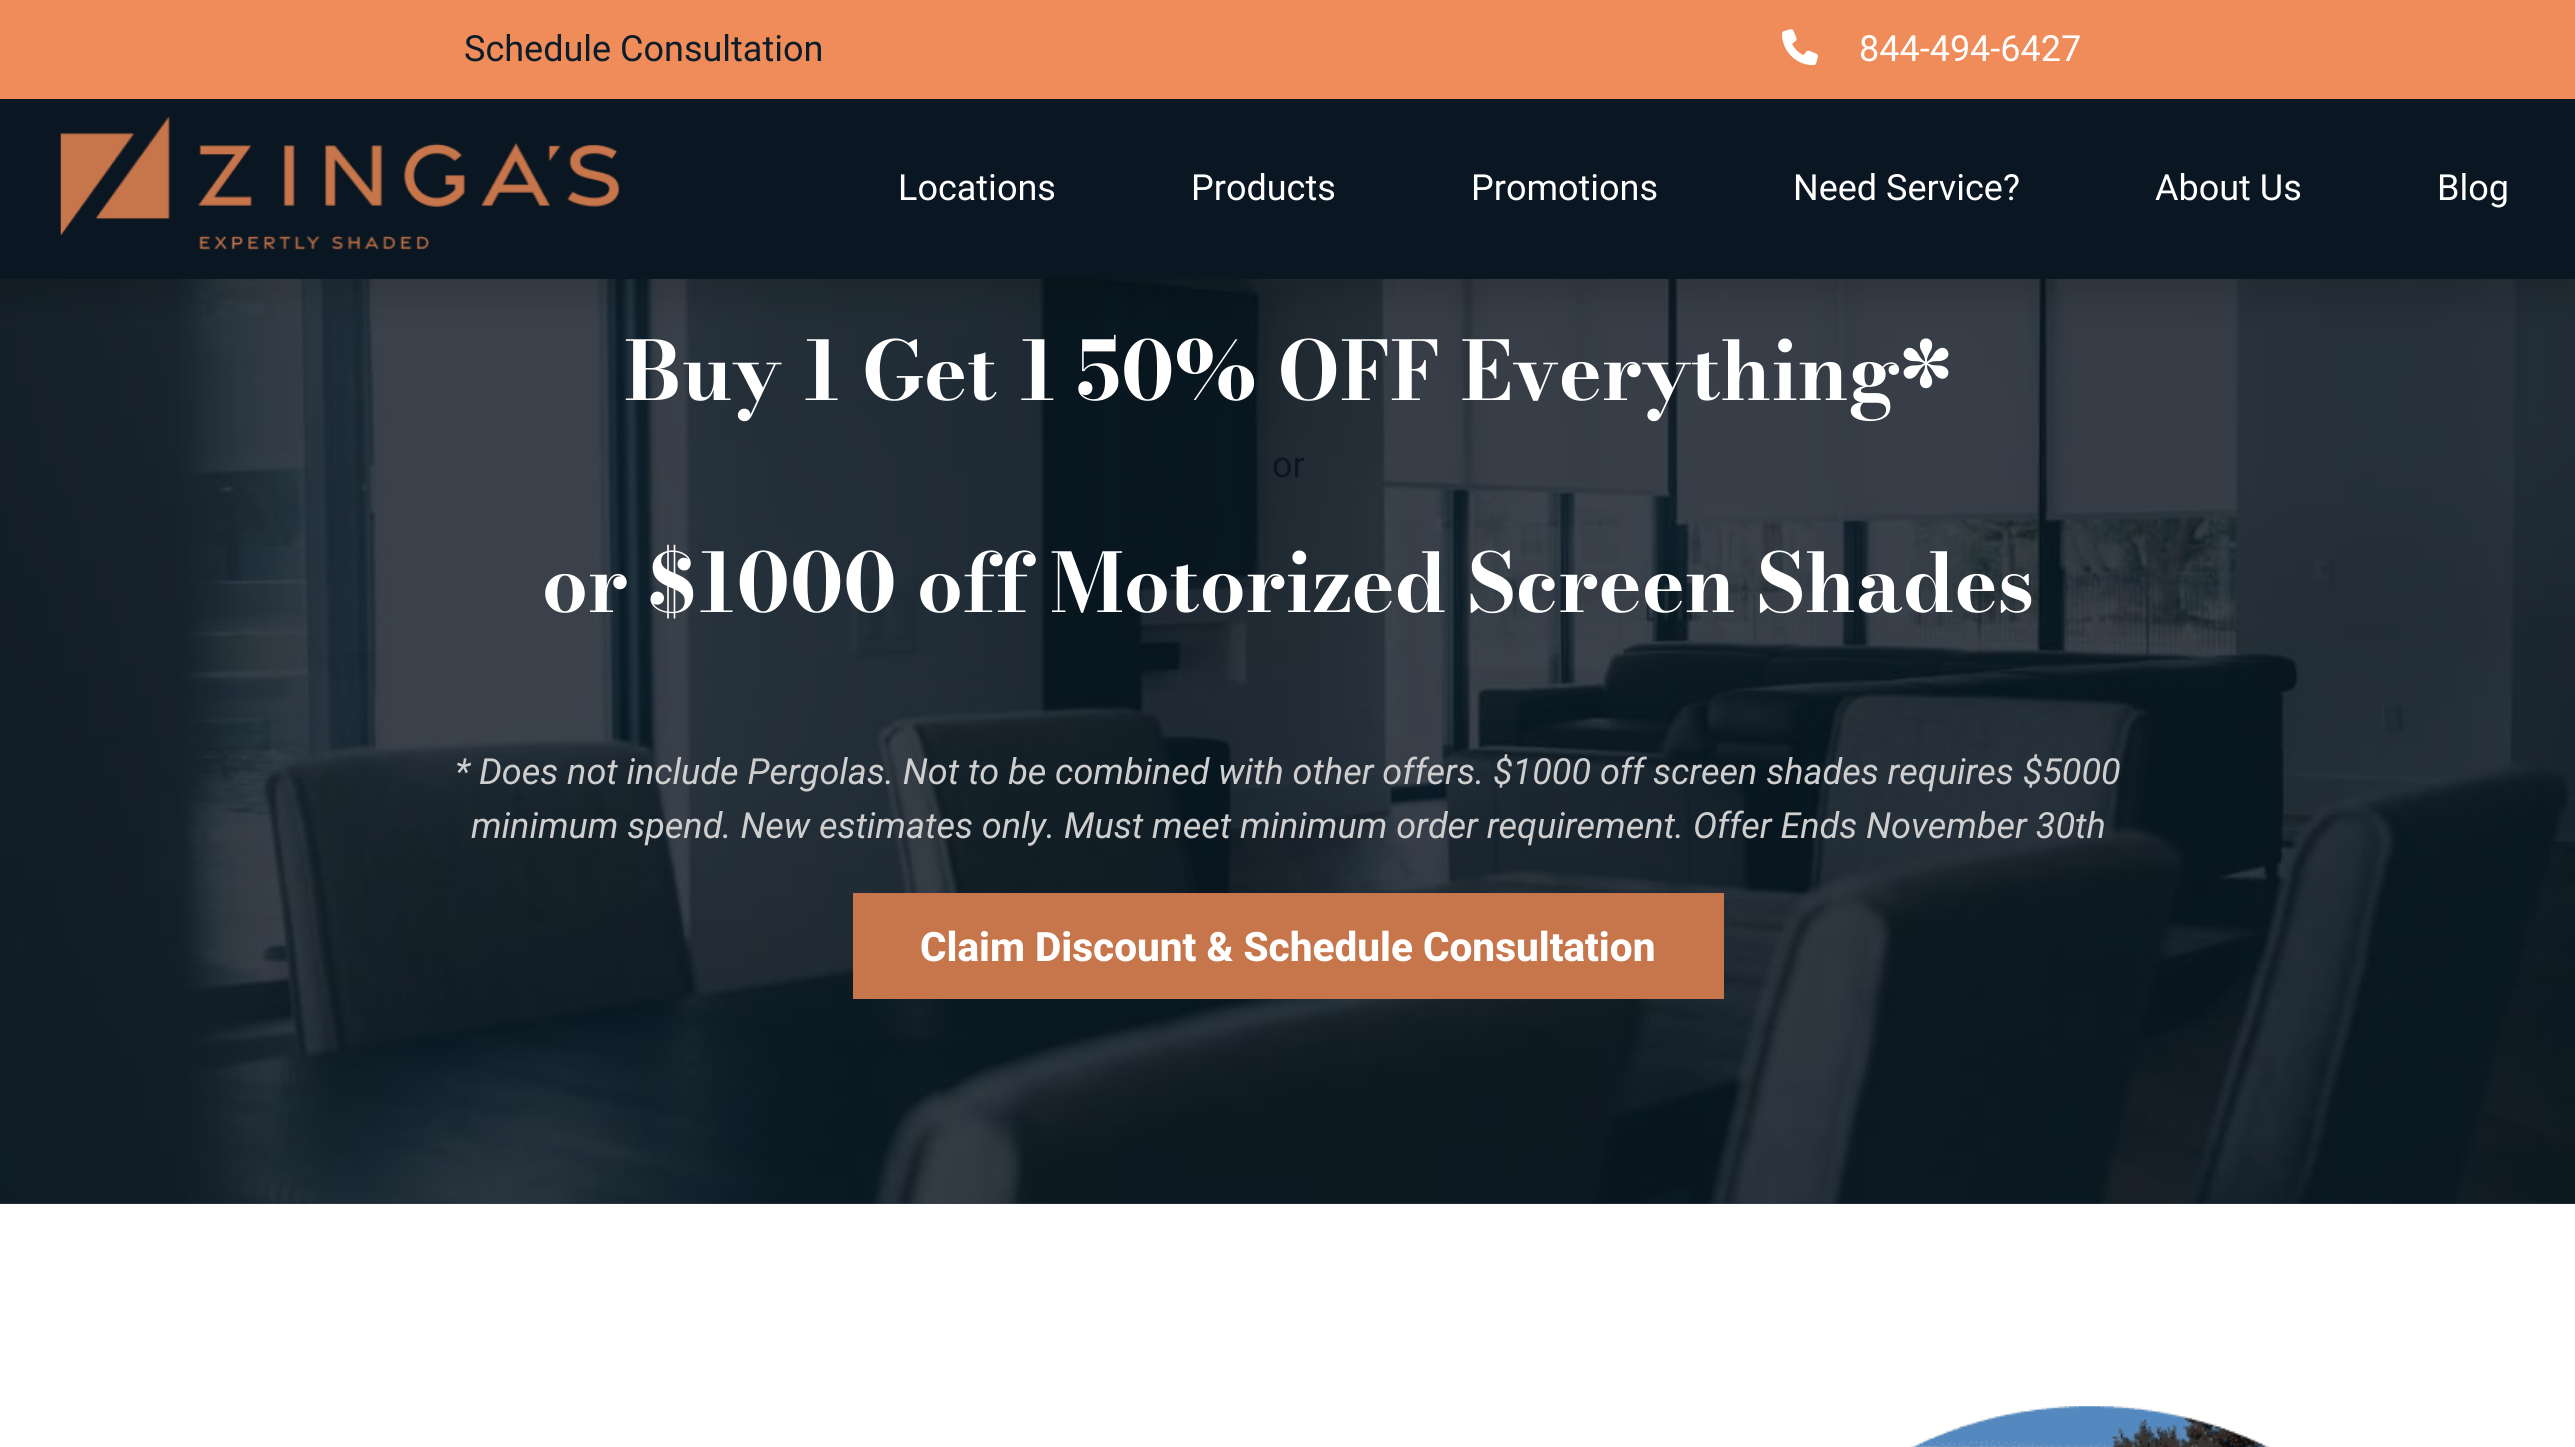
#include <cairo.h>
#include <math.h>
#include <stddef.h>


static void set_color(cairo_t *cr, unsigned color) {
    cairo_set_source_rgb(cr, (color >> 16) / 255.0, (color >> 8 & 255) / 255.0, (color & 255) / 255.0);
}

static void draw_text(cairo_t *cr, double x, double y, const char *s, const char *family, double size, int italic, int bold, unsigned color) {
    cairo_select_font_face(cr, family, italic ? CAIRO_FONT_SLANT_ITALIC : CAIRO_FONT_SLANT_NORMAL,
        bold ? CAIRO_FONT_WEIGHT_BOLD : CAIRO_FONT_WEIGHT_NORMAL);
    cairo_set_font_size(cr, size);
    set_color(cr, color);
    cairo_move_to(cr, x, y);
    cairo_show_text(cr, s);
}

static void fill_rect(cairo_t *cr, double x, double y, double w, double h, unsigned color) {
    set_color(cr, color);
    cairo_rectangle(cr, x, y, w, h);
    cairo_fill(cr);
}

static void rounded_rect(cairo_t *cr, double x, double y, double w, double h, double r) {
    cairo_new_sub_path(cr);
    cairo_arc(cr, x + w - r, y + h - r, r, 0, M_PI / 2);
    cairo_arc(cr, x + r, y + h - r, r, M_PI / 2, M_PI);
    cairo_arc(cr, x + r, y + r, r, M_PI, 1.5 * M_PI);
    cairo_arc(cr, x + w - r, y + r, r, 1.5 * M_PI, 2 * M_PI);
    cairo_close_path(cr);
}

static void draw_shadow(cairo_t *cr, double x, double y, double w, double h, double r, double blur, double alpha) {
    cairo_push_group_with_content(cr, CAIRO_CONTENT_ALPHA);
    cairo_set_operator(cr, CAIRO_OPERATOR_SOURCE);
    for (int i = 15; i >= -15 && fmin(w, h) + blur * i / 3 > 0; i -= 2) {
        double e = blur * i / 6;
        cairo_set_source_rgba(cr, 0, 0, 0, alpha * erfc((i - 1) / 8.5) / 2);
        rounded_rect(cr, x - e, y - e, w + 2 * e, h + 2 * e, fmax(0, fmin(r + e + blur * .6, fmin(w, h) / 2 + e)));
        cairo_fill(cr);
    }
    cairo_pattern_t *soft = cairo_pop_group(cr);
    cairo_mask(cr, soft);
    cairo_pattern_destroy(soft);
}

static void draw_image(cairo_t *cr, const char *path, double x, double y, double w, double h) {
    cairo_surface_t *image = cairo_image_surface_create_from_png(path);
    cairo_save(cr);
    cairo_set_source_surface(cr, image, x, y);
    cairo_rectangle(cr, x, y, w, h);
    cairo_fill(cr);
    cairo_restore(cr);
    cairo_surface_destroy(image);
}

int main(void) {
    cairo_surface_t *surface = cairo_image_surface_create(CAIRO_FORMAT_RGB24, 2575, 1447);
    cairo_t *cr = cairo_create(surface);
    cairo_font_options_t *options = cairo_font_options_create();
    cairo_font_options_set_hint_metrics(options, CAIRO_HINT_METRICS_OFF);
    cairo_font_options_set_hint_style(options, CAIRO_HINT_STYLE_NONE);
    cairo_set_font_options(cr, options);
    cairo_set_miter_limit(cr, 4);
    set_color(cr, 0xFFFFFF);
    cairo_paint(cr);
    fill_rect(cr, 0, 1203, 2575, 1, 0x3B454D);
    draw_image(cr, "assets/img3.png", 0, 279, 2575, 925);
    set_color(cr, 0x000000);
    draw_shadow(cr, 0, 18, 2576, 279, 0, 18, 0.15);
    fill_rect(cr, 0, 0, 2575, 99, 0xEF8C5A);
    draw_text(cr, 464, 61, "Schedule Consultation", "Roboto", 36, 0, 0, 0x0C1C29);
    draw_image(cr, "assets/img1.png", 1782, 29, 36, 36);
    draw_text(cr, 1859, 61, "844-494-6427", "Roboto", 36, 0, 0, 0xFFFFFF);
    fill_rect(cr, 0, 99, 2575, 180, 0x0A1621);
    draw_image(cr, "assets/img2.png", 60, 117, 560, 133);
    draw_text(cr, 898, 200, "Locations", "Roboto", 36, 0, 0, 0xFFFFFF);
    draw_text(cr, 1191, 200, "Products", "Roboto", 36, 0, 0, 0xFFFFFF);
    draw_text(cr, 1471, 200, "Promotions", "Roboto", 36, 0, 0, 0xFFFFFF);
    draw_text(cr, 1793, 200, "Need Service?", "Roboto", 36, 0, 0, 0xFFFFFF);
    draw_text(cr, 2155, 200, "About Us", "Roboto", 36, 0, 0, 0xFFFFFF);
    draw_text(cr, 2437, 200, "Blog", "Roboto", 36, 0, 0, 0xFFFFFF);
    draw_text(cr, 624, 400, "Buy 1 Get 1 50% OFF Everything*", "Bodoni Moda", 81, 0, 1, 0xFFFFFF);
    draw_text(cr, 1272, 477, "or", "Roboto", 36, 0, 0, 0x0A1621);
    draw_text(cr, 542, 612, "or $1000 off Motorized Screen Shades", "Bodoni Moda", 81, 0, 1, 0xFFFFFF);
    draw_text(cr, 455, 784, "* Does not include Pergolas. Not to be combined with other offers. $1000 off screen shades requires $5000", "Roboto", 36, 1, 0, 0xCECECE);
    draw_text(cr, 471, 838, "minimum spend. New estimates only. Must meet minimum order requirement. Offer Ends November 30th", "Roboto", 36, 1, 0, 0xCECECE);
    fill_rect(cr, 853, 893, 871, 106, 0xC7754B);
    draw_text(cr, 920, 961, "Claim Discount & Schedule Consultation", "Roboto ExtraBold", 40.5, 0, 0, 0xFFFFFF);
    draw_image(cr, "assets/img4.png", 1911, 1406, 359, 41);
    cairo_surface_write_to_png(surface, "output.png");
    cairo_font_options_destroy(options);
    cairo_destroy(cr);
    cairo_surface_destroy(surface);
    return 0;
}
